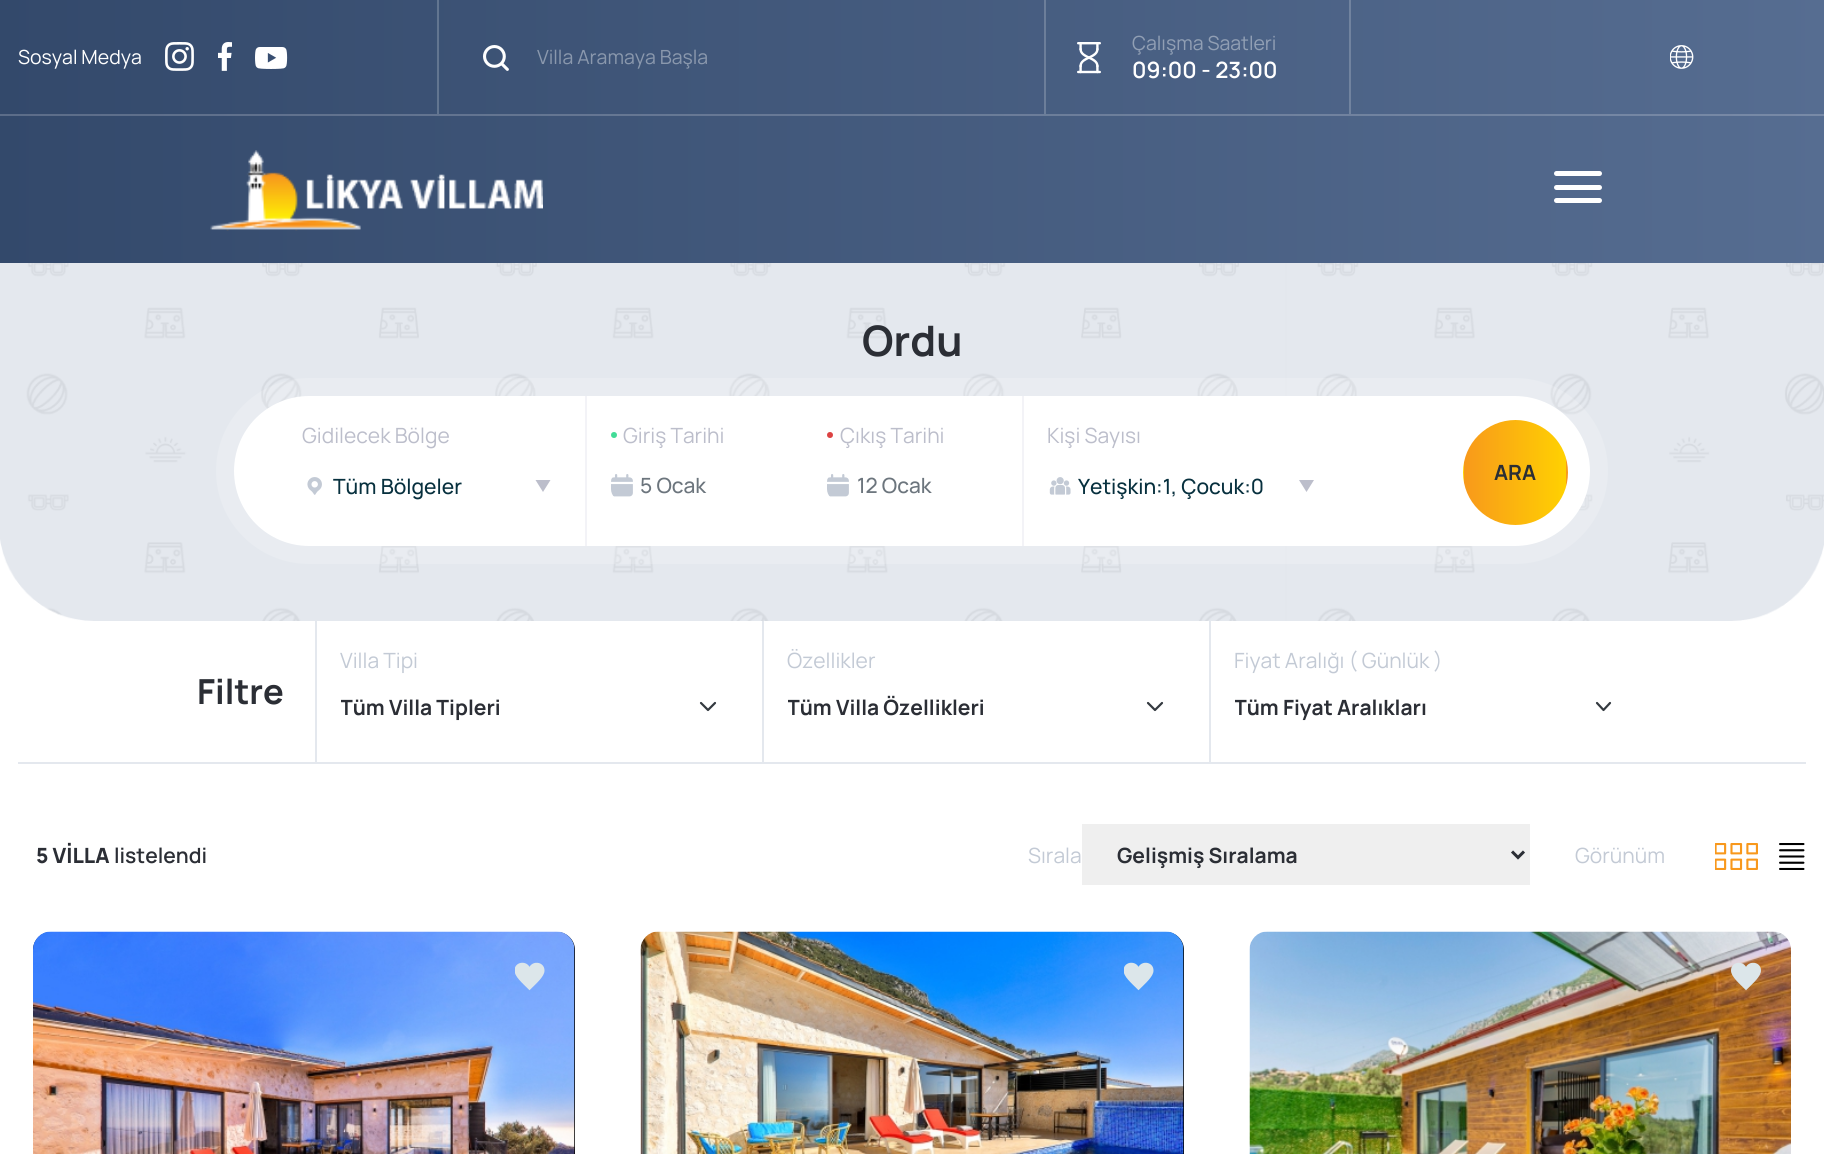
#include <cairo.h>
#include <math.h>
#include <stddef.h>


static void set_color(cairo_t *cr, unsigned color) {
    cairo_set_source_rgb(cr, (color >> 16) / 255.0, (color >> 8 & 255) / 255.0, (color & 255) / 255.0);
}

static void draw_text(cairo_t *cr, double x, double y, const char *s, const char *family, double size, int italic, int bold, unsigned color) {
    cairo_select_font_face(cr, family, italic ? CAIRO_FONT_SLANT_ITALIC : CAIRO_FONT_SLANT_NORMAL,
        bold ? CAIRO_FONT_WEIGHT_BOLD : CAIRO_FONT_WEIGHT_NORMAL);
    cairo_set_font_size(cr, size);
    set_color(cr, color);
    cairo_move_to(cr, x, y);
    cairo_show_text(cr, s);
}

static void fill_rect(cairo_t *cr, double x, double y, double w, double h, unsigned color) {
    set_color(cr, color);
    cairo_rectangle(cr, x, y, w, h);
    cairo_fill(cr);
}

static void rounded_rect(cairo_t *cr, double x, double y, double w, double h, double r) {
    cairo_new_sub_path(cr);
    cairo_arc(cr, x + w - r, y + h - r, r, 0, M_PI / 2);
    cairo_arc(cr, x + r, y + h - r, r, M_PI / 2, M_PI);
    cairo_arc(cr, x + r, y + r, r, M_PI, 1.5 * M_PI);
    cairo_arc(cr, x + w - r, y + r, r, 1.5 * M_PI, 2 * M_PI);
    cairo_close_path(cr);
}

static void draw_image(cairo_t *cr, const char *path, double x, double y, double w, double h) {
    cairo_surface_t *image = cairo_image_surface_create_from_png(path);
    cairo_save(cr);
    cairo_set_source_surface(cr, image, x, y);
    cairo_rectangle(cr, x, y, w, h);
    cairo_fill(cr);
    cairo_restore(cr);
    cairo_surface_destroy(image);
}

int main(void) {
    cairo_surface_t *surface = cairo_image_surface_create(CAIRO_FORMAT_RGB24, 1824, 1154);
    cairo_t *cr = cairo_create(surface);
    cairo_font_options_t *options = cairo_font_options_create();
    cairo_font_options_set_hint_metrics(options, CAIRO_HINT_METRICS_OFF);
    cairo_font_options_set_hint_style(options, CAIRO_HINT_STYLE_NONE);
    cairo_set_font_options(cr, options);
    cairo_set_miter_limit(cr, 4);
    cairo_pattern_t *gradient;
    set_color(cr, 0xFFFFFF);
    cairo_paint(cr);
    gradient = cairo_pattern_create_linear(0, 131, 1824, 131);
    cairo_pattern_add_color_stop_rgba(gradient, 0, 0.2, 0.286, 0.42, 1);
    cairo_pattern_add_color_stop_rgba(gradient, 1, 0.337, 0.427, 0.569, 1);
    cairo_set_source(cr, gradient);
    cairo_pattern_destroy(gradient);
    cairo_rectangle(cr, 0, 0, 1824, 263);
    cairo_fill(cr);
    gradient = cairo_pattern_create_linear(0, 131, 1824, 131);
    cairo_pattern_add_color_stop_rgba(gradient, 0, 0.361, 0.427, 0.537, 1);
    cairo_pattern_add_color_stop_rgba(gradient, 1, 0.471, 0.541, 0.655, 1);
    cairo_set_source(cr, gradient);
    cairo_pattern_destroy(gradient);
    cairo_rectangle(cr, 0, 114, 1824, 2);
    cairo_fill(cr);
    fill_rect(cr, 437, 0, 2, 114, 0x627590);
    draw_text(cr, 18, 64, "Sosyal Medya", "Manrope", 19.5, 0, 0, 0xFFFFFF);
    draw_image(cr, "assets/img1.png", 165, 42, 29, 29);
    draw_image(cr, "assets/img2.png", 218, 42, 14, 29);
    draw_image(cr, "assets/img3.png", 255, 47, 33, 22);
    fill_rect(cr, 1044, 0, 2, 114, 0x6C7E9A);
    draw_image(cr, "assets/img4.png", 483, 45, 26, 26);
    draw_text(cr, 537, 64, "Villa Aramaya Başla", "Manrope", 19.5, 0, 0, 0x8A98AD);
    fill_rect(cr, 1349, 0, 2, 114, 0x71839F);
    draw_image(cr, "assets/img5.png", 1077, 42, 24, 32);
    draw_text(cr, 1132, 50, "Çalışma Saatleri", "Manrope", 19.5, 0, 0, 0x919FB4);
    draw_text(cr, 1132, 78, "09:00 - 23:00", "Manrope SemiBold", 22.5, 0, 0, 0xFFFFFF);
    draw_image(cr, "assets/img6.png", 1670, 45, 24, 24);
    draw_image(cr, "assets/img7.png", 210, 150, 333, 81);
    rounded_rect(cr, 1554, 171, 48, 5, 2.5);
    cairo_fill(cr);
    rounded_rect(cr, 1554, 185, 48, 5, 2.5);
    cairo_fill(cr);
    rounded_rect(cr, 1554, 198, 48, 5, 2.5);
    cairo_fill(cr);
    draw_image(cr, "assets/img8.png", 0, 263, 1824, 358);
    draw_text(cr, 862, 356, "Ordu", "Manrope", 42, 0, 1, 0x2B2E35);
    rounded_rect(cr, 225, 387, 1374, 168, 84);
    cairo_set_source_rgba(cr, 1, 1, 1, 0.17);
    cairo_set_line_width(cr, 18);
    cairo_stroke(cr);
    set_color(cr, 0xFFFFFF);
    rounded_rect(cr, 234, 396, 1356, 150, 75);
    cairo_fill(cr);
    draw_text(cr, 302, 443, "Gidilecek Bölge", "Manrope", 21, 0, 0, 0xBCBECB);
    draw_image(cr, "assets/img9.png", 307, 477, 15, 18);
    draw_text(cr, 333, 494, "Tüm Bölgeler", "Manrope Medium", 21, 0, 0, 0x07303E);
    set_color(cr, 0xBCBECB);
    cairo_set_fill_rule(cr, CAIRO_FILL_RULE_EVEN_ODD);
    cairo_new_path(cr);
    cairo_move_to(cr, 535.5, 480);
    cairo_line_to(cr, 550.5, 480);
    cairo_line_to(cr, 543, 492);
    cairo_close_path(cr);
    cairo_fill(cr);
    fill_rect(cr, 585, 396, 2, 150, 0xF3F3F7);
    set_color(cr, 0x42DC98);
    cairo_arc(cr, 614, 435, 3, 0, 2 * M_PI);
    cairo_fill(cr);
    draw_text(cr, 623, 443, "Giriş Tarihi", "Manrope", 21, 0, 0, 0xBCBECB);
    draw_image(cr, "assets/img10.png", 611, 474, 22, 23);
    draw_text(cr, 640, 493, "5 Ocak", "Manrope Medium", 21, 0, 0, 0x6C757D);
    set_color(cr, 0xDC4242);
    cairo_new_path(cr);
    cairo_arc(cr, 830, 435, 3, 0, 2 * M_PI);
    cairo_fill(cr);
    draw_text(cr, 840, 443, "Çıkış Tarihi", "Manrope", 21, 0, 0, 0xBCBECB);
    draw_image(cr, "assets/img10.png", 827, 474, 22, 23);
    draw_text(cr, 857, 493, "12 Ocak", "Manrope Medium", 21, 0, 0, 0x6C757D);
    fill_rect(cr, 1022, 396, 2, 150, 0xF3F3F7);
    draw_text(cr, 1047, 443, "Kişi Sayısı", "Manrope", 21, 0, 0, 0xBCBECB);
    draw_image(cr, "assets/img11.png", 1049, 477, 22, 18);
    draw_text(cr, 1078, 494, "Yetişkin:1, Çocuk:0", "Manrope Medium", 21, 0, 0, 0x07303E);
    set_color(cr, 0xBCBECB);
    cairo_new_path(cr);
    cairo_move_to(cr, 1299, 480);
    cairo_line_to(cr, 1314, 480);
    cairo_line_to(cr, 1306.5, 492);
    cairo_close_path(cr);
    cairo_fill(cr);
    cairo_save(cr);
    cairo_set_fill_rule(cr, CAIRO_FILL_RULE_WINDING);
    rounded_rect(cr, 1463, 420, 105, 105, 52.5);
    cairo_clip(cr);
    gradient = cairo_pattern_create_linear(1362, 473, 1464, 473);
    cairo_pattern_add_color_stop_rgba(gradient, 0, 0.973, 0.6, 0.106, 1);
    cairo_pattern_add_color_stop_rgba(gradient, 1, 1, 0.82, 0.004, 1);
    cairo_set_source(cr, gradient);
    cairo_pattern_destroy(gradient);
    cairo_rectangle(cr, 1463, 462, 1, 21);
    cairo_fill(cr);
    gradient = cairo_pattern_create_linear(1464, 473, 1566, 473);
    cairo_pattern_add_color_stop_rgba(gradient, 0, 0.973, 0.6, 0.106, 1);
    cairo_pattern_add_color_stop_rgba(gradient, 1, 1, 0.82, 0.004, 1);
    cairo_set_source(cr, gradient);
    cairo_pattern_destroy(gradient);
    cairo_rectangle(cr, 1464, 420, 102, 105);
    cairo_fill(cr);
    gradient = cairo_pattern_create_linear(1566, 473, 1668, 473);
    cairo_pattern_add_color_stop_rgba(gradient, 0, 0.973, 0.6, 0.106, 1);
    cairo_pattern_add_color_stop_rgba(gradient, 1, 1, 0.82, 0.004, 1);
    cairo_set_source(cr, gradient);
    cairo_pattern_destroy(gradient);
    cairo_rectangle(cr, 1566, 458, 2, 29);
    cairo_fill(cr);
    cairo_restore(cr);
    draw_text(cr, 1494, 480, "ARA", "Manrope", 21, 0, 1, 0x2B2E35);
    fill_rect(cr, 18, 762, 1788, 2, 0xE4E8EE);
    fill_rect(cr, 315, 621, 2, 141, 0xE4E8EE);
    draw_text(cr, 197, 704, "Filtre", "Manrope", 34.5, 0, 1, 0x2B2E35);
    fill_rect(cr, 762, 621, 2, 141, 0xE4E8EE);
    draw_text(cr, 340, 668, "Villa Tipi", "Manrope", 21, 0, 0, 0xC3CAD5);
    cairo_new_path(cr);
    cairo_move_to(cr, 701, 703);
    cairo_line_to(cr, 708, 710);
    cairo_line_to(cr, 715, 703);
    set_color(cr, 0x343A40);
    cairo_set_line_width(cr, 2.2);
    cairo_set_line_cap(cr, CAIRO_LINE_CAP_ROUND);
    cairo_set_line_join(cr, CAIRO_LINE_JOIN_ROUND);
    cairo_stroke(cr);
    cairo_save(cr);
    cairo_set_fill_rule(cr, CAIRO_FILL_RULE_WINDING);
    rounded_rect(cr, 341, 677, 397, 61, 12);
    cairo_clip(cr);
    draw_text(cr, 340, 715, "Tüm Villa Tipleri", "Manrope", 21, 0, 1, 0x2B2E35);
    cairo_restore(cr);
    fill_rect(cr, 1209, 621, 2, 141, 0xE4E8EE);
    draw_text(cr, 787, 668, "Özellikler", "Manrope", 21, 0, 0, 0xC3CAD5);
    cairo_new_path(cr);
    cairo_move_to(cr, 1148, 703);
    cairo_line_to(cr, 1155, 710);
    cairo_line_to(cr, 1162, 703);
    set_color(cr, 0x343A40);
    cairo_stroke(cr);
    cairo_save(cr);
    cairo_set_fill_rule(cr, CAIRO_FILL_RULE_WINDING);
    rounded_rect(cr, 788, 677, 397, 61, 12);
    cairo_clip(cr);
    draw_text(cr, 787, 715, "Tüm Villa Özellikleri", "Manrope", 21, 0, 1, 0x2B2E35);
    cairo_restore(cr);
    draw_text(cr, 1234, 668, "Fiyat Aralığı ( Günlük )", "Manrope", 21, 0, 0, 0xC3CAD5);
    cairo_new_path(cr);
    cairo_move_to(cr, 1597, 703);
    cairo_line_to(cr, 1603.5, 710);
    cairo_line_to(cr, 1610, 703);
    set_color(cr, 0x343A40);
    cairo_stroke(cr);
    cairo_save(cr);
    cairo_set_fill_rule(cr, CAIRO_FILL_RULE_WINDING);
    rounded_rect(cr, 1235, 677, 399, 61, 12);
    cairo_clip(cr);
    draw_text(cr, 1234, 715, "Tüm Fiyat Aralıkları", "Manrope", 21, 0, 1, 0x2B2E35);
    cairo_restore(cr);
    draw_text(cr, 36, 863, "5 VİLLA", "Manrope ExtraBold", 21, 0, 0, 0x2B2E35);
    draw_text(cr, 114, 863, "listelendi", "Manrope SemiBold", 21, 0, 0, 0x2B2E35);
    draw_text(cr, 1028, 863, "Sırala", "Manrope", 21, 0, 0, 0xC3CAD5);
    fill_rect(cr, 1082, 824, 448, 61, 0xEFEFEF);
    cairo_new_path(cr);
    cairo_move_to(cr, 1512, 851.5);
    cairo_line_to(cr, 1518, 857.5);
    cairo_line_to(cr, 1524, 851.5);
    set_color(cr, 0x2B2E35);
    cairo_set_line_width(cr, 3);
    cairo_set_line_cap(cr, CAIRO_LINE_CAP_BUTT);
    cairo_set_line_join(cr, CAIRO_LINE_JOIN_MITER);
    cairo_stroke(cr);
    draw_text(cr, 1117, 863, "Gelişmiş Sıralama", "Manrope", 21, 0, 1, 0x2B2E35);
    draw_text(cr, 1575, 863, "Görünüm", "Manrope", 21, 0, 0, 0xC3CAD5);
    draw_image(cr, "assets/img12.png", 1715, 843, 43, 27);
    draw_image(cr, "assets/img13.png", 1779, 843, 26, 27);
    set_color(cr, 0x000000);
    rounded_rect(cr, 33, 932, 542, 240, 18);
    cairo_fill(cr);
    draw_image(cr, "assets/img14.png", 33, 931, 542, 223);
    draw_image(cr, "assets/img15.png", 515, 962, 30, 29);
    rounded_rect(cr, 641, 932, 543, 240, 18);
    cairo_fill(cr);
    draw_image(cr, "assets/img16.png", 640, 931, 544, 223);
    draw_image(cr, "assets/img17.png", 1124, 962, 30, 29);
    draw_image(cr, "assets/img18.png", 1249, 931, 542, 223);
    draw_image(cr, "assets/img19.png", 1731, 962, 30, 29);
    cairo_surface_write_to_png(surface, "output.png");
    cairo_font_options_destroy(options);
    cairo_destroy(cr);
    cairo_surface_destroy(surface);
    return 0;
}
